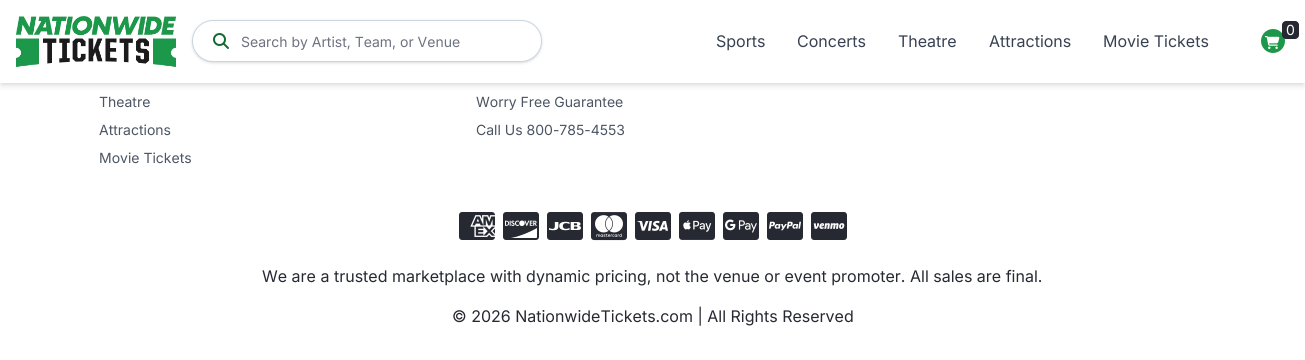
#include <cairo.h>
#include <math.h>
#include <stddef.h>


static void set_color(cairo_t *cr, unsigned color) {
    cairo_set_source_rgb(cr, (color >> 16) / 255.0, (color >> 8 & 255) / 255.0, (color & 255) / 255.0);
}

static void draw_text(cairo_t *cr, double x, double y, const char *s, const char *family, double size, int italic, int bold, unsigned color) {
    cairo_select_font_face(cr, family, italic ? CAIRO_FONT_SLANT_ITALIC : CAIRO_FONT_SLANT_NORMAL,
        bold ? CAIRO_FONT_WEIGHT_BOLD : CAIRO_FONT_WEIGHT_NORMAL);
    cairo_set_font_size(cr, size);
    set_color(cr, color);
    cairo_move_to(cr, x, y);
    cairo_show_text(cr, s);
}

static void fill_rect(cairo_t *cr, double x, double y, double w, double h, unsigned color) {
    set_color(cr, color);
    cairo_rectangle(cr, x, y, w, h);
    cairo_fill(cr);
}

static void rounded_rect(cairo_t *cr, double x, double y, double w, double h, double r) {
    cairo_new_sub_path(cr);
    cairo_arc(cr, x + w - r, y + h - r, r, 0, M_PI / 2);
    cairo_arc(cr, x + r, y + h - r, r, M_PI / 2, M_PI);
    cairo_arc(cr, x + r, y + r, r, M_PI, 1.5 * M_PI);
    cairo_arc(cr, x + w - r, y + r, r, 1.5 * M_PI, 2 * M_PI);
    cairo_close_path(cr);
}

static void draw_shadow(cairo_t *cr, double x, double y, double w, double h, double r, double blur, double alpha) {
    cairo_push_group_with_content(cr, CAIRO_CONTENT_ALPHA);
    cairo_set_operator(cr, CAIRO_OPERATOR_SOURCE);
    for (int i = 15; i >= -15 && fmin(w, h) + blur * i / 3 > 0; i -= 2) {
        double e = blur * i / 6;
        cairo_set_source_rgba(cr, 0, 0, 0, alpha * erfc((i - 1) / 8.5) / 2);
        rounded_rect(cr, x - e, y - e, w + 2 * e, h + 2 * e, fmax(0, fmin(r + e + blur * .6, fmin(w, h) / 2 + e)));
        cairo_fill(cr);
    }
    cairo_pattern_t *soft = cairo_pop_group(cr);
    cairo_mask(cr, soft);
    cairo_pattern_destroy(soft);
}

static void draw_image(cairo_t *cr, const char *path, double x, double y, double w, double h) {
    cairo_surface_t *image = cairo_image_surface_create_from_png(path);
    cairo_save(cr);
    cairo_set_source_surface(cr, image, x, y);
    cairo_rectangle(cr, x, y, w, h);
    cairo_fill(cr);
    cairo_restore(cr);
    cairo_surface_destroy(image);
}

int main(void) {
    cairo_surface_t *surface = cairo_image_surface_create(CAIRO_FORMAT_RGB24, 1305, 360);
    cairo_t *cr = cairo_create(surface);
    cairo_font_options_t *options = cairo_font_options_create();
    cairo_font_options_set_hint_metrics(options, CAIRO_HINT_METRICS_OFF);
    cairo_font_options_set_hint_style(options, CAIRO_HINT_STYLE_NONE);
    cairo_set_font_options(cr, options);
    cairo_set_miter_limit(cr, 4);
    set_color(cr, 0xFFFFFF);
    cairo_paint(cr);
    set_color(cr, 0x000000);
    draw_shadow(cr, 2, 4, 1301, 79, 0, 2, 0.1);
    draw_shadow(cr, 1, 5, 1303, 81, 0, 3, 0.1);
    fill_rect(cr, 0, 0, 1305, 83, 0xFFFFFF);
    draw_image(cr, "assets/img1.png", 16, 16, 160, 51);
    set_color(cr, 0x1D984A);
    cairo_arc(cr, 1273, 41, 12, 0, 2 * M_PI);
    cairo_fill(cr);
    draw_image(cr, "assets/img2.png", 1264, 36, 16, 13);
    set_color(cr, 0x272932);
    rounded_rect(cr, 1282, 21, 17, 18, 4);
    cairo_fill(cr);
    draw_text(cr, 1286, 35, "0", "Inter", 14, 0, 0, 0xFFFFFF);
    set_color(cr, 0x000000);
    draw_shadow(cr, 193, 22, 348, 40, 20, 1, 0.1);
    draw_shadow(cr, 192, 21, 350, 42, 21, 1.5, 0.1);
    set_color(cr, 0xFFFFFF);
    rounded_rect(cr, 192.5, 20.5, 349, 41, 20.5);
    cairo_fill_preserve(cr);
    set_color(cr, 0xCBD5E1);
    cairo_set_line_width(cr, 1);
    cairo_stroke(cr);
    draw_image(cr, "assets/img3.png", 213, 33, 16, 16);
    draw_text(cr, 241, 47, "Search by Artist, Team, or Venue", "Inter", 14, 0, 0, 0x6B7280);
    draw_text(cr, 716, 47, "Sports", "Inter", 16, 0, 0, 0x374151);
    draw_text(cr, 797, 47, "Concerts", "Inter", 16, 0, 0, 0x374151);
    draw_text(cr, 898, 47, "Theatre", "Inter", 16, 0, 0, 0x374151);
    draw_text(cr, 989, 47, "Attractions", "Inter", 16, 0, 0, 0x374151);
    draw_text(cr, 1103, 47, "Movie Tickets", "Inter", 16, 0, 0, 0x374151);
    draw_text(cr, 99, 107, "Theatre", "Inter", 14, 0, 0, 0x4B5563);
    draw_text(cr, 99, 135, "Attractions", "Inter", 14, 0, 0, 0x4B5563);
    draw_text(cr, 99, 163, "Movie Tickets", "Inter", 14, 0, 0, 0x4B5563);
    draw_text(cr, 476, 107, "Worry Free Guarantee", "Inter", 14, 0, 0, 0x4B5563);
    draw_text(cr, 476, 135, "Call Us 800-785-4553", "Inter", 14, 0, 0, 0x4B5563);
    draw_image(cr, "assets/img4.png", 459, 212, 36, 28);
    draw_image(cr, "assets/img5.png", 503, 212, 36, 28);
    draw_image(cr, "assets/img6.png", 547, 212, 36, 28);
    draw_image(cr, "assets/img7.png", 591, 212, 36, 29);
    draw_image(cr, "assets/img8.png", 635, 212, 36, 28);
    draw_image(cr, "assets/img9.png", 679, 211, 36, 29);
    draw_image(cr, "assets/img10.png", 723, 212, 36, 28);
    draw_image(cr, "assets/img11.png", 767, 212, 36, 28);
    draw_image(cr, "assets/img12.png", 811, 212, 36, 28);
    draw_text(cr, 262, 282, "We are a trusted marketplace with dynamic pricing, not the venue or event promoter. All sales are final.", "Inter", 16, 0, 0, 0x272932);
    draw_text(cr, 452, 322, "© 2026 NationwideTickets.com | All Rights Reserved", "Inter", 16, 0, 0, 0x272932);
    cairo_surface_write_to_png(surface, "output.png");
    cairo_font_options_destroy(options);
    cairo_destroy(cr);
    cairo_surface_destroy(surface);
    return 0;
}
